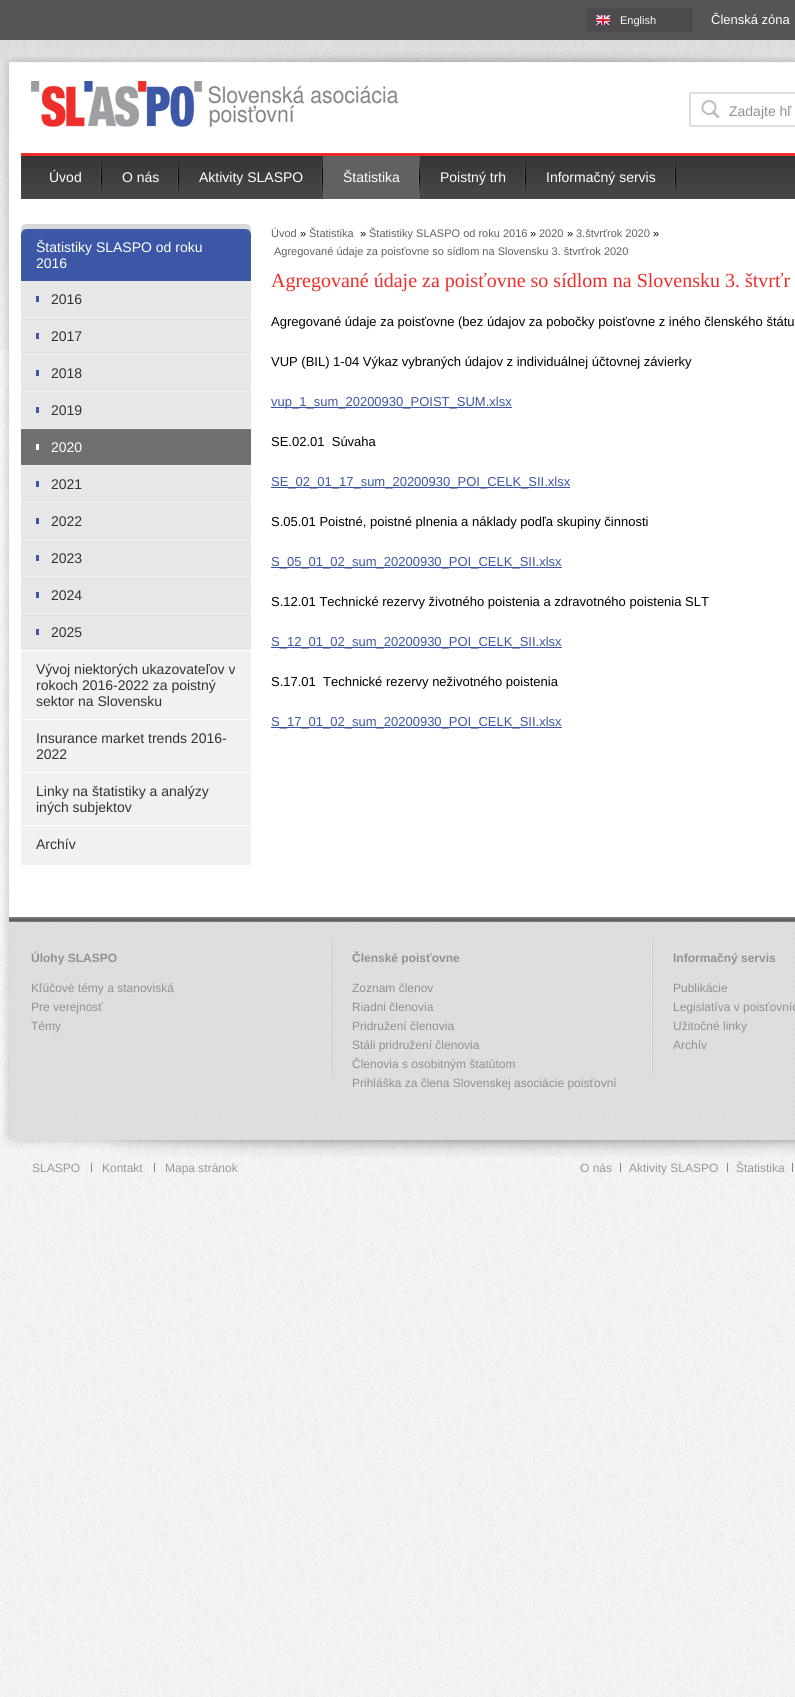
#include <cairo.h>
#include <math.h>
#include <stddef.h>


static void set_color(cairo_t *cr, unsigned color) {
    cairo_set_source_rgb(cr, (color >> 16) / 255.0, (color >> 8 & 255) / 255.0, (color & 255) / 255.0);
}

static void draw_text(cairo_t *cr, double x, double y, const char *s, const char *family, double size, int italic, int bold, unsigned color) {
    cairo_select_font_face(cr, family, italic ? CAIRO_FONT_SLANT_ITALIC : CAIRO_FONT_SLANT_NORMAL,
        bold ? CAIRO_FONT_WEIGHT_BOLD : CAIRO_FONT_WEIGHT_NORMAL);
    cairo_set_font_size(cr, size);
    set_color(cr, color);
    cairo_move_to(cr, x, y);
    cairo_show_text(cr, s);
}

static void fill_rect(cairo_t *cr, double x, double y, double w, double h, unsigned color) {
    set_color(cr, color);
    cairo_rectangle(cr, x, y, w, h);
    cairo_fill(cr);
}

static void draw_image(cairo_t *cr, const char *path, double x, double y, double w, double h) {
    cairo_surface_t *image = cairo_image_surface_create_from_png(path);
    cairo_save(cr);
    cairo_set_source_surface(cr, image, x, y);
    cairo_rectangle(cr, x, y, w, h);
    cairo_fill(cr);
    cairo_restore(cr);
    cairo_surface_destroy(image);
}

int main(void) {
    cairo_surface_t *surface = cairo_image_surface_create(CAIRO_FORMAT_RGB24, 795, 1697);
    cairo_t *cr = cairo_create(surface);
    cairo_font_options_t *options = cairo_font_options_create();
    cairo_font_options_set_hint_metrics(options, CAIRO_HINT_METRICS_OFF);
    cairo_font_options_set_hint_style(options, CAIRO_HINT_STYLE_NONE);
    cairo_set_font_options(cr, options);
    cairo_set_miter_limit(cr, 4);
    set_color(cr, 0xFFFFFF);
    cairo_paint(cr);
    draw_image(cr, "assets/img1.png", 0, 40, 795, 1657);
    fill_rect(cr, 0, 0, 795, 40, 0x555555);
    draw_image(cr, "assets/img2.png", 586, 8, 107, 24);
    draw_image(cr, "assets/img3.png", 596, 15, 14, 10);
    draw_text(cr, 620, 24, "English", "Liberation Sans", 11, 0, 0, 0xFFFFFF);
    draw_text(cr, 711, 24, "Členská zóna", "Liberation Sans", 13, 0, 0, 0xFFFFFF);
    draw_image(cr, "assets/img4.png", 0, 40, 795, 310);
    draw_image(cr, "assets/img5.png", 247, 51, 506, 12);
    draw_image(cr, "assets/img6.png", 3, 57, 792, 20);
    draw_image(cr, "assets/img7.png", 3, 77, 792, 1036);
    draw_image(cr, "assets/img8.png", 31, 81, 367, 46);
    fill_rect(cr, 690, 92, 105, 2, 0xDEDEDE);
    fill_rect(cr, 690, 125, 105, 2, 0xDEDEDE);
    fill_rect(cr, 689, 93, 2, 33, 0xDEDEDE);
    draw_image(cr, "assets/img9.png", 701, 100, 19, 19);
    draw_text(cr, 729, 116, "Zadajte hľ", "Liberation Sans", 14, 0, 0, 0x919191);
    fill_rect(cr, 21, 153, 774, 3, 0xED2D29);
    draw_image(cr, "assets/img10.png", 21, 156, 774, 43);
    draw_image(cr, "assets/img11.png", 100, 161, 2, 33);
    draw_text(cr, 49, 182, "Úvod", "Liberation Sans", 14, 0, 0, 0xFFFFFF);
    draw_image(cr, "assets/img11.png", 177, 161, 2, 33);
    draw_text(cr, 122, 182, "O nás", "Liberation Sans", 14, 0, 0, 0xFFFFFF);
    draw_image(cr, "assets/img11.png", 321, 161, 2, 33);
    draw_text(cr, 199, 182, "Aktivity SLASPO", "Liberation Sans", 14, 0, 0, 0xFFFFFF);
    fill_rect(cr, 323, 156, 97, 43, 0x616161);
    draw_image(cr, "assets/img12.png", 418, 160, 2, 34);
    draw_text(cr, 343, 182, "Štatistika", "Liberation Sans", 14, 0, 0, 0xFFFFFF);
    draw_image(cr, "assets/img11.png", 524, 161, 2, 33);
    draw_text(cr, 440, 182, "Poistný trh", "Liberation Sans", 14, 0, 0, 0xFFFFFF);
    draw_image(cr, "assets/img11.png", 674, 161, 2, 33);
    draw_text(cr, 546, 182, "Informačný servis", "Liberation Sans", 14, 0, 0, 0xFFFFFF);
    draw_image(cr, "assets/img13.png", 21, 224, 230, 9);
    set_color(cr, 0xF1F1F1);
    cairo_new_path(cr);
    cairo_move_to(cr, 27, 229);
    cairo_line_to(cr, 245, 229);
    cairo_curve_to(cr, 248.5, 229, 251, 231.5, 251, 235);
    cairo_line_to(cr, 251, 650);
    cairo_line_to(cr, 21, 650);
    cairo_line_to(cr, 21, 235);
    cairo_curve_to(cr, 21, 231.5, 23.5, 229, 27, 229);
    cairo_close_path(cr);
    cairo_fill(cr);
    set_color(cr, 0x3D57A7);
    cairo_new_path(cr);
    cairo_move_to(cr, 27, 229);
    cairo_line_to(cr, 245, 229);
    cairo_curve_to(cr, 248.5, 229, 251, 231.5, 251, 235);
    cairo_line_to(cr, 251, 281);
    cairo_line_to(cr, 21, 281);
    cairo_line_to(cr, 21, 235);
    cairo_curve_to(cr, 21, 231.5, 23.5, 229, 27, 229);
    cairo_close_path(cr);
    cairo_fill(cr);
    draw_text(cr, 36, 252, "Štatistiky SLASPO od roku", "Liberation Sans", 14, 0, 0, 0xFFFFFF);
    draw_text(cr, 36, 268, "2016", "Liberation Sans", 14, 0, 0, 0xFFFFFF);
    fill_rect(cr, 21, 281, 230, 36, 0xE7E7E7);
    fill_rect(cr, 36, 296, 3, 6, 0x3D57A7);
    draw_text(cr, 51, 304, "2016", "Liberation Sans", 14, 0, 0, 0x333333);
    fill_rect(cr, 21, 318, 230, 36, 0xE7E7E7);
    fill_rect(cr, 36, 333, 3, 6, 0x3D57A7);
    draw_text(cr, 51, 341, "2017", "Liberation Sans", 14, 0, 0, 0x333333);
    fill_rect(cr, 21, 355, 230, 36, 0xE7E7E7);
    fill_rect(cr, 36, 370, 3, 6, 0x3D57A7);
    draw_text(cr, 51, 378, "2018", "Liberation Sans", 14, 0, 0, 0x333333);
    fill_rect(cr, 21, 392, 230, 36, 0xE7E7E7);
    fill_rect(cr, 36, 407, 3, 6, 0x3D57A7);
    draw_text(cr, 51, 415, "2019", "Liberation Sans", 14, 0, 0, 0x333333);
    fill_rect(cr, 21, 429, 230, 36, 0x707070);
    fill_rect(cr, 36, 444, 3, 6, 0xFFFFFF);
    draw_text(cr, 51, 452, "2020", "Liberation Sans", 14, 0, 0, 0xFFFFFF);
    fill_rect(cr, 21, 466, 230, 36, 0xE7E7E7);
    fill_rect(cr, 36, 481, 3, 6, 0x3D57A7);
    draw_text(cr, 51, 489, "2021", "Liberation Sans", 14, 0, 0, 0x333333);
    fill_rect(cr, 21, 503, 230, 36, 0xE7E7E7);
    fill_rect(cr, 36, 518, 3, 6, 0x3D57A7);
    draw_text(cr, 51, 526, "2022", "Liberation Sans", 14, 0, 0, 0x333333);
    fill_rect(cr, 21, 540, 230, 36, 0xE7E7E7);
    fill_rect(cr, 36, 555, 3, 6, 0x3D57A7);
    draw_text(cr, 51, 563, "2023", "Liberation Sans", 14, 0, 0, 0x333333);
    fill_rect(cr, 21, 577, 230, 36, 0xE7E7E7);
    fill_rect(cr, 36, 592, 3, 6, 0x3D57A7);
    draw_text(cr, 51, 600, "2024", "Liberation Sans", 14, 0, 0, 0x333333);
    fill_rect(cr, 21, 614, 230, 36, 0xE7E7E7);
    fill_rect(cr, 36, 629, 3, 6, 0x3D57A7);
    draw_text(cr, 51, 637, "2025", "Liberation Sans", 14, 0, 0, 0x333333);
    fill_rect(cr, 21, 651, 230, 68, 0xF1F1F1);
    draw_text(cr, 36, 674, "Vývoj niektorých ukazovateľov v", "Liberation Sans", 14, 0, 0, 0x333333);
    draw_text(cr, 36, 690, "rokoch 2016-2022 za poistný", "Liberation Sans", 14, 0, 0, 0x333333);
    draw_text(cr, 36, 706, "sektor na Slovensku", "Liberation Sans", 14, 0, 0, 0x333333);
    fill_rect(cr, 21, 720, 230, 52, 0xF1F1F1);
    draw_text(cr, 36, 743, "Insurance market trends 2016-", "Liberation Sans", 14, 0, 0, 0x333333);
    draw_text(cr, 36, 759, "2022", "Liberation Sans", 14, 0, 0, 0x333333);
    fill_rect(cr, 21, 773, 230, 52, 0xF1F1F1);
    draw_text(cr, 36, 796, "Linky na štatistiky a analýzy", "Liberation Sans", 14, 0, 0, 0x333333);
    draw_text(cr, 36, 812, "iných subjektov", "Liberation Sans", 14, 0, 0, 0x333333);
    fill_rect(cr, 21, 826, 230, 39, 0xF1F1F1);
    draw_text(cr, 36, 849, "Archív", "Liberation Sans", 14, 0, 0, 0x333333);
    draw_text(cr, 271, 237, "Úvod", "Liberation Sans", 11, 0, 0, 0x616161);
    draw_text(cr, 300, 237, "»", "Liberation Sans", 11, 0, 0, 0x000000);
    draw_text(cr, 309, 237, "Štatistika", "Liberation Sans", 11, 0, 0, 0x616161);
    draw_text(cr, 360, 237, "»", "Liberation Sans", 11, 0, 0, 0x000000);
    draw_text(cr, 369, 237, "Štatistiky SLASPO od roku 2016", "Liberation Sans", 11, 0, 0, 0x616161);
    draw_text(cr, 530, 237, "»", "Liberation Sans", 11, 0, 0, 0x000000);
    draw_text(cr, 539, 237, "2020", "Liberation Sans", 11, 0, 0, 0x616161);
    draw_text(cr, 567, 237, "»", "Liberation Sans", 11, 0, 0, 0x000000);
    draw_text(cr, 576, 237, "3.štvrťrok 2020", "Liberation Sans", 11, 0, 0, 0x616161);
    draw_text(cr, 653, 237, "»", "Liberation Sans", 11, 0, 0, 0x000000);
    draw_text(cr, 274, 255, "Agregované údaje za poisťovne so sídlom na Slovensku 3. štvrťrok 2020", "Liberation Sans", 11, 0, 0, 0x616161);
    draw_text(cr, 271, 287, "Agregované údaje za poisťovne so sídlom na Slovensku 3. štvrťr", "Liberation Serif", 20, 0, 0, 0xED2D29);
    draw_text(cr, 271, 326, "Agregované údaje za poisťovne (bez údajov za pobočky poisťovne z iného členského štátu", "Liberation Sans", 13, 0, 0, 0x000000);
    draw_text(cr, 271, 366, "VUP (BIL) 1-04 Výkaz vybraných údajov z individuálnej účtovnej závierky", "Liberation Sans", 13, 0, 0, 0x000000);
    fill_rect(cr, 271, 407, 241, 1, 0x3D57A7);
    draw_text(cr, 271, 406, "vup_1_sum_20200930_POIST_SUM.xlsx", "Liberation Sans", 13, 0, 0, 0x3D57A7);
    draw_text(cr, 271, 446, "SE.02.01  Súvaha", "Liberation Sans", 13, 0, 0, 0x000000);
    fill_rect(cr, 271, 487, 299, 1, 0x3D57A7);
    draw_text(cr, 271, 486, "SE_02_01_17_sum_20200930_POI_CELK_SII.xlsx", "Liberation Sans", 13, 0, 0, 0x3D57A7);
    draw_text(cr, 271, 526, "S.05.01 Poistné, poistné plnenia a náklady podľa skupiny činnosti", "Liberation Sans", 13, 0, 0, 0x000000);
    fill_rect(cr, 271, 567, 291, 1, 0x3D57A7);
    draw_text(cr, 271, 566, "S_05_01_02_sum_20200930_POI_CELK_SII.xlsx", "Liberation Sans", 13, 0, 0, 0x3D57A7);
    draw_text(cr, 271, 606, "S.12.01 Technické rezervy životného poistenia a zdravotného poistenia SLT", "Liberation Sans", 13, 0, 0, 0x000000);
    fill_rect(cr, 271, 647, 291, 1, 0x3D57A7);
    draw_text(cr, 271, 646, "S_12_01_02_sum_20200930_POI_CELK_SII.xlsx", "Liberation Sans", 13, 0, 0, 0x3D57A7);
    draw_text(cr, 271, 686, "S.17.01  Technické rezervy neživotného poistenia", "Liberation Sans", 13, 0, 0, 0x000000);
    fill_rect(cr, 271, 727, 291, 1, 0x3D57A7);
    draw_text(cr, 271, 726, "S_17_01_02_sum_20200930_POI_CELK_SII.xlsx", "Liberation Sans", 13, 0, 0, 0x3D57A7);
    draw_image(cr, "assets/img14.png", 9, 921, 786, 192);
    draw_image(cr, "assets/img15.png", 9, 917, 786, 5);
    draw_text(cr, 31, 962, "Úlohy SLASPO", "Liberation Sans", 12, 0, 1, 0x919191);
    draw_text(cr, 31, 992, "Kľúčové témy a stanoviská", "Liberation Sans", 12, 0, 0, 0x919191);
    draw_text(cr, 31, 1011, "Pre verejnosť", "Liberation Sans", 12, 0, 0, 0x919191);
    draw_text(cr, 31, 1030, "Témy", "Liberation Sans", 12, 0, 0, 0x919191);
    draw_image(cr, "assets/img16.png", 330, 940, 2, 136);
    draw_text(cr, 352, 962, "Členské poisťovne", "Liberation Sans", 12, 0, 1, 0x919191);
    draw_text(cr, 352, 992, "Zoznam členov", "Liberation Sans", 12, 0, 0, 0x919191);
    draw_text(cr, 352, 1011, "Riadni členovia", "Liberation Sans", 12, 0, 0, 0x919191);
    draw_text(cr, 352, 1030, "Pridružení členovia", "Liberation Sans", 12, 0, 0, 0x919191);
    draw_text(cr, 352, 1049, "Stáli pridružení členovia", "Liberation Sans", 12, 0, 0, 0x919191);
    draw_text(cr, 352, 1068, "Členovia s osobitným štatútom", "Liberation Sans", 12, 0, 0, 0x919191);
    draw_text(cr, 352, 1087, "Prihláška za člena Slovenskej asociácie poisťovní", "Liberation Sans", 12, 0, 0, 0x919191);
    draw_image(cr, "assets/img17.png", 651, 940, 2, 135);
    draw_text(cr, 673, 962, "Informačný servis", "Liberation Sans", 12, 0, 1, 0x919191);
    draw_text(cr, 673, 992, "Publikácie", "Liberation Sans", 12, 0, 0, 0x919191);
    draw_text(cr, 673, 1011, "Legislatíva v poisťovníc", "Liberation Sans", 12, 0, 0, 0x919191);
    draw_text(cr, 673, 1030, "Užitočné linky", "Liberation Sans", 12, 0, 0, 0x919191);
    draw_text(cr, 673, 1049, "Archív", "Liberation Sans", 12, 0, 0, 0x919191);
    draw_image(cr, "assets/img18.png", 3, 1113, 792, 43);
    draw_text(cr, 32, 1172, "SLASPO", "Liberation Sans", 12, 0, 0, 0x989898);
    fill_rect(cr, 91, 1163, 1, 9, 0x858585);
    draw_text(cr, 102, 1172, "Kontakt", "Liberation Sans", 12, 0, 0, 0x989898);
    fill_rect(cr, 154, 1163, 1, 9, 0x858585);
    draw_text(cr, 165, 1172, "Mapa stránok", "Liberation Sans", 12, 0, 0, 0x989898);
    draw_text(cr, 580, 1172, "O nás", "Liberation Sans", 12, 0, 0, 0x989898);
    fill_rect(cr, 620, 1163, 1, 9, 0x858585);
    draw_text(cr, 629, 1172, "Aktivity SLASPO", "Liberation Sans", 12, 0, 0, 0x989898);
    fill_rect(cr, 727, 1163, 1, 9, 0x858585);
    draw_text(cr, 736, 1172, "Štatistika", "Liberation Sans", 12, 0, 0, 0x989898);
    fill_rect(cr, 792, 1163, 1, 9, 0x858585);
    cairo_surface_write_to_png(surface, "output.png");
    cairo_font_options_destroy(options);
    cairo_destroy(cr);
    cairo_surface_destroy(surface);
    return 0;
}
